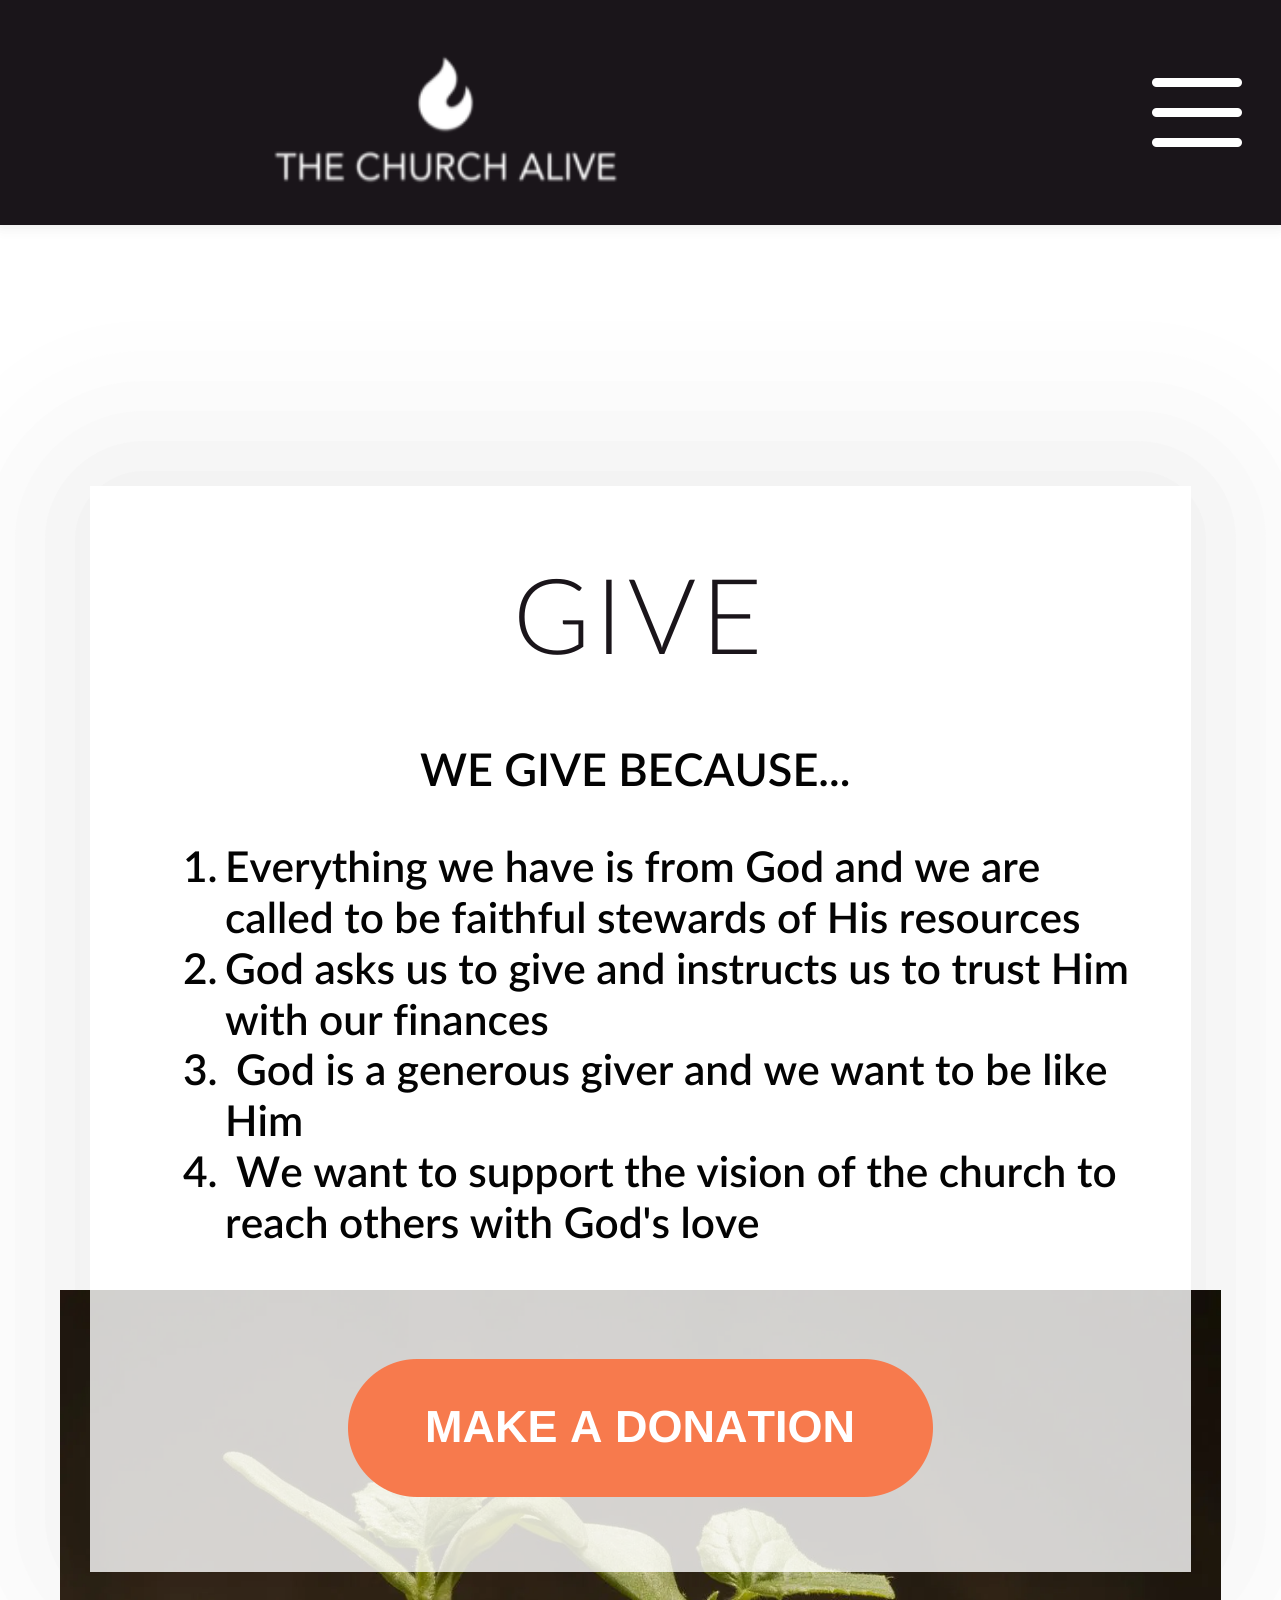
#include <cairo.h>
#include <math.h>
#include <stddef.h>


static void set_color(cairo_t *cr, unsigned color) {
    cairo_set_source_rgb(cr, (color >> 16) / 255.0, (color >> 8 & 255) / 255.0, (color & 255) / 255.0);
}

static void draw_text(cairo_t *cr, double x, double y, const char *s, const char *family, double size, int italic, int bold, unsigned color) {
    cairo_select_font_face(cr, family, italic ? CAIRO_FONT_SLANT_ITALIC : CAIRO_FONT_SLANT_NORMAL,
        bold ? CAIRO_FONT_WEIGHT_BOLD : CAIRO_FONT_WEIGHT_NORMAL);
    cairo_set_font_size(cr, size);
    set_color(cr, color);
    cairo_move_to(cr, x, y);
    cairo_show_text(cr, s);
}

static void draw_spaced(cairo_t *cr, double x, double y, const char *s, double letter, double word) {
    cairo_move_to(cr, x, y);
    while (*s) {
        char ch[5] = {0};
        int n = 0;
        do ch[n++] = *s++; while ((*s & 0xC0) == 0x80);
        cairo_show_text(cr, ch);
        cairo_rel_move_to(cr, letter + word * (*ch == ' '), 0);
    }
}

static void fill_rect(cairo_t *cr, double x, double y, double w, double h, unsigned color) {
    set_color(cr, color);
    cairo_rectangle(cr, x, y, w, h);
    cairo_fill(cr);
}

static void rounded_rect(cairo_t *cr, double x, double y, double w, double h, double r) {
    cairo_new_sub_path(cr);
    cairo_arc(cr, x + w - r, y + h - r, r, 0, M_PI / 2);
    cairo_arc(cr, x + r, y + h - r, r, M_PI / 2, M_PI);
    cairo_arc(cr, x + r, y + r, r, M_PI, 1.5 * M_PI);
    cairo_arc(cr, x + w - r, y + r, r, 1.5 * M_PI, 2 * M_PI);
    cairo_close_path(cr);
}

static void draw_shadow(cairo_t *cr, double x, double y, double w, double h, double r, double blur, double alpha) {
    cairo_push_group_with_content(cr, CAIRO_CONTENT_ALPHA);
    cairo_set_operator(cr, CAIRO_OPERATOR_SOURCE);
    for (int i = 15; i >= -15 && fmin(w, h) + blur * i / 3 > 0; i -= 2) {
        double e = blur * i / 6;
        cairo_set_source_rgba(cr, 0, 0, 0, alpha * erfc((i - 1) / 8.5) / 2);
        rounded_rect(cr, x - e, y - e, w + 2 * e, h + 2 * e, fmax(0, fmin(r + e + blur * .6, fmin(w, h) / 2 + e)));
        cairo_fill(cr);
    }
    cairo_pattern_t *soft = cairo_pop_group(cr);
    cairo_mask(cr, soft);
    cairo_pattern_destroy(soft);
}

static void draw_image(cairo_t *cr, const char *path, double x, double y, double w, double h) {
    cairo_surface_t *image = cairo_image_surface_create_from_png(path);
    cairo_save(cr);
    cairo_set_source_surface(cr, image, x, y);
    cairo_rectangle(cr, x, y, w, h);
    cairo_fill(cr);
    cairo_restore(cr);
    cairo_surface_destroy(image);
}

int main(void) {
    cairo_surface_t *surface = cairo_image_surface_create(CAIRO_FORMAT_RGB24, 1281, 1600);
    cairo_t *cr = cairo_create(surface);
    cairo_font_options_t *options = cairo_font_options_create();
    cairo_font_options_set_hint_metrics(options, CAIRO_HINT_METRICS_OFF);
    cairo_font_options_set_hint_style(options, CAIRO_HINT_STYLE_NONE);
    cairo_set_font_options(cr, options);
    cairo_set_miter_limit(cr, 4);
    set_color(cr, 0xFFFFFF);
    cairo_paint(cr);
    set_color(cr, 0x000000);
    draw_shadow(cr, 0, 0, 1281, 225, 0, 7.5, 0.1);
    draw_image(cr, "assets/img2.png", 60, 1290, 1161, 310);
    cairo_save(cr);
    cairo_set_fill_rule(cr, CAIRO_FILL_RULE_EVEN_ODD);
    cairo_new_path(cr);
    cairo_move_to(cr, 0, 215);
    cairo_line_to(cr, 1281, 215);
    cairo_line_to(cr, 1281, 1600);
    cairo_line_to(cr, 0, 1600);
    cairo_close_path(cr);
    cairo_move_to(cr, 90, 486);
    cairo_line_to(cr, 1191, 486);
    cairo_line_to(cr, 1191, 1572);
    cairo_line_to(cr, 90, 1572);
    cairo_close_path(cr);
    cairo_clip(cr);
    draw_shadow(cr, 90, 486, 1101, 1086, 0, 90, 0.1);
    cairo_restore(cr);
    fill_rect(cr, 0, 0, 1281, 225, 0x1A151A);
    draw_image(cr, "assets/img1.png", 274, 56, 344, 128);
    set_color(cr, 0xFFFFFF);
    rounded_rect(cr, 1152, 78, 90, 9, 4.5);
    cairo_fill(cr);
    rounded_rect(cr, 1152, 108, 90, 9, 4.5);
    cairo_fill(cr);
    rounded_rect(cr, 1152, 138, 90, 9, 4.5);
    cairo_fill(cr);
    cairo_set_source_rgba(cr, 1, 1, 1, 0.8);
    cairo_rectangle(cr, 90, 1290, 1101, 282);
    cairo_fill(cr);
    cairo_select_font_face(cr, "Lato Light", CAIRO_FONT_SLANT_NORMAL, CAIRO_FONT_WEIGHT_NORMAL);
    cairo_set_font_size(cr, 105);
    set_color(cr, 0x1A151A);
    draw_spaced(cr, 513, 654, "GIVE", 5, 0);
    draw_text(cr, 420, 786, "WE GIVE BECAUSE...", "Lato SemiBold", 45.1, 0, 0, 0x030303);
    draw_text(cr, 183, 882, "1.", "Lato SemiBold", 42.4, 0, 0, 0x030303);
    draw_text(cr, 225, 882, "Everything we have is from God and we are", "Lato SemiBold", 42.4, 0, 0, 0x030303);
    draw_text(cr, 225, 933, "called to be faithful stewards of His resources", "Lato SemiBold", 42.4, 0, 0, 0x030303);
    draw_text(cr, 183, 984, "2.", "Lato SemiBold", 42.4, 0, 0, 0x030303);
    draw_text(cr, 225, 984, "God asks us to give and instructs us to trust Him", "Lato SemiBold", 42.4, 0, 0, 0x030303);
    draw_text(cr, 225, 1035, "with our finances", "Lato SemiBold", 42.4, 0, 0, 0x030303);
    draw_text(cr, 183, 1085, "3.", "Lato SemiBold", 42.4, 0, 0, 0x030303);
    draw_text(cr, 236, 1085, "God is a generous giver and we want to be like", "Lato SemiBold", 42.4, 0, 0, 0x030303);
    draw_text(cr, 225, 1136, "Him", "Lato SemiBold", 42.4, 0, 0, 0x030303);
    draw_text(cr, 183, 1187, "4.", "Lato SemiBold", 42.4, 0, 0, 0x030303);
    draw_text(cr, 236, 1187, "We want to support the vision of the church to", "Lato SemiBold", 42.4, 0, 0, 0x030303);
    draw_text(cr, 225, 1238, "reach others with God's love", "Lato SemiBold", 42.4, 0, 0, 0x030303);
    set_color(cr, 0xF77A4D);
    rounded_rect(cr, 348, 1359, 585, 138, 69);
    cairo_fill(cr);
    draw_text(cr, 425, 1442, "MAKE A DONATION", "Liberation Sans", 45, 0, 1, 0xFFFFFF);
    cairo_surface_write_to_png(surface, "output.png");
    cairo_font_options_destroy(options);
    cairo_destroy(cr);
    cairo_surface_destroy(surface);
    return 0;
}
